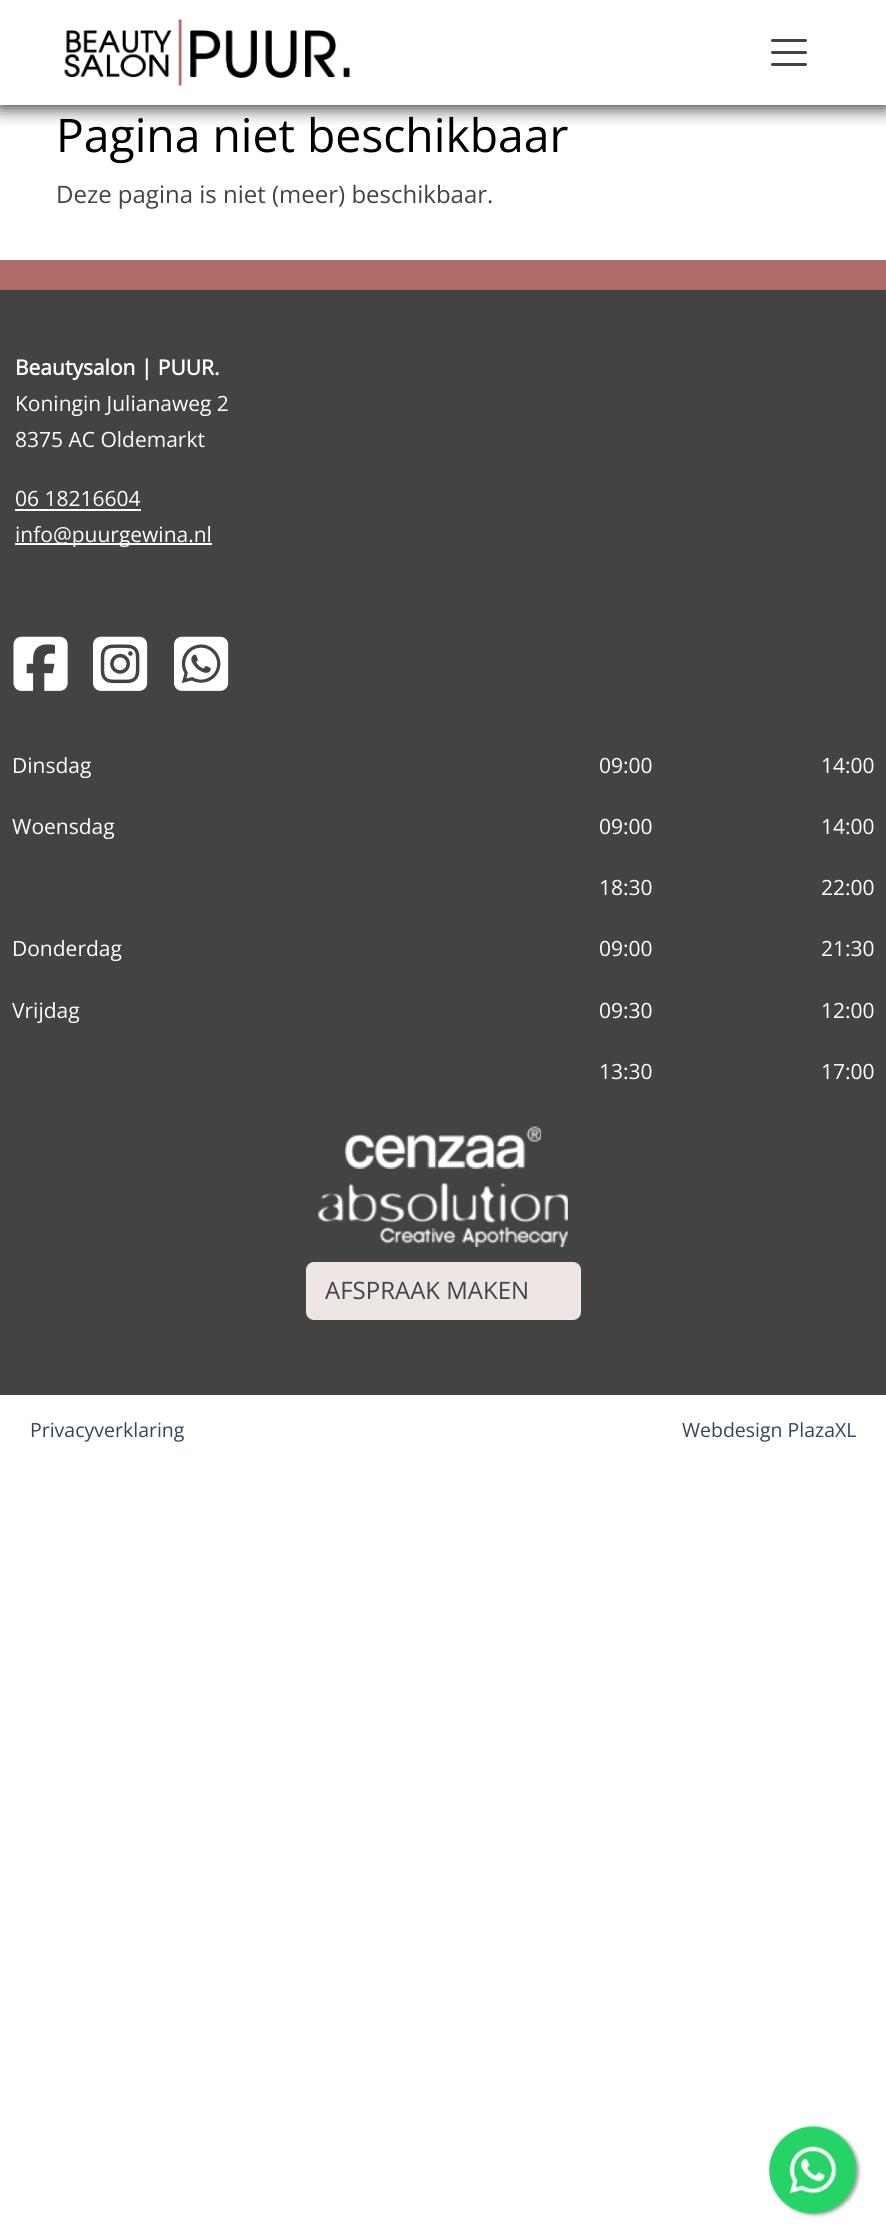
#include <cairo.h>
#include <math.h>
#include <stddef.h>


static void set_color(cairo_t *cr, unsigned color) {
    cairo_set_source_rgb(cr, (color >> 16) / 255.0, (color >> 8 & 255) / 255.0, (color & 255) / 255.0);
}

static void draw_text(cairo_t *cr, double x, double y, const char *s, const char *family, double size, int italic, int bold, unsigned color) {
    cairo_select_font_face(cr, family, italic ? CAIRO_FONT_SLANT_ITALIC : CAIRO_FONT_SLANT_NORMAL,
        bold ? CAIRO_FONT_WEIGHT_BOLD : CAIRO_FONT_WEIGHT_NORMAL);
    cairo_set_font_size(cr, size);
    set_color(cr, color);
    cairo_move_to(cr, x, y);
    cairo_show_text(cr, s);
}

static void fill_rect(cairo_t *cr, double x, double y, double w, double h, unsigned color) {
    set_color(cr, color);
    cairo_rectangle(cr, x, y, w, h);
    cairo_fill(cr);
}

static void rounded_rect(cairo_t *cr, double x, double y, double w, double h, double r) {
    cairo_new_sub_path(cr);
    cairo_arc(cr, x + w - r, y + h - r, r, 0, M_PI / 2);
    cairo_arc(cr, x + r, y + h - r, r, M_PI / 2, M_PI);
    cairo_arc(cr, x + r, y + r, r, M_PI, 1.5 * M_PI);
    cairo_arc(cr, x + w - r, y + r, r, 1.5 * M_PI, 2 * M_PI);
    cairo_close_path(cr);
}

static void draw_shadow(cairo_t *cr, double x, double y, double w, double h, double r, double blur, double alpha) {
    cairo_push_group_with_content(cr, CAIRO_CONTENT_ALPHA);
    cairo_set_operator(cr, CAIRO_OPERATOR_SOURCE);
    for (int i = 15; i >= -15 && fmin(w, h) + blur * i / 3 > 0; i -= 2) {
        double e = blur * i / 6;
        cairo_set_source_rgba(cr, 0, 0, 0, alpha * erfc((i - 1) / 8.5) / 2);
        rounded_rect(cr, x - e, y - e, w + 2 * e, h + 2 * e, fmax(0, fmin(r + e + blur * .6, fmin(w, h) / 2 + e)));
        cairo_fill(cr);
    }
    cairo_pattern_t *soft = cairo_pop_group(cr);
    cairo_mask(cr, soft);
    cairo_pattern_destroy(soft);
}

static void draw_image(cairo_t *cr, const char *path, double x, double y, double w, double h) {
    cairo_surface_t *image = cairo_image_surface_create_from_png(path);
    cairo_save(cr);
    cairo_set_source_surface(cr, image, x, y);
    cairo_rectangle(cr, x, y, w, h);
    cairo_fill(cr);
    cairo_restore(cr);
    cairo_surface_destroy(image);
}

int main(void) {
    cairo_surface_t *surface = cairo_image_surface_create(CAIRO_FORMAT_RGB24, 886, 2233);
    cairo_t *cr = cairo_create(surface);
    cairo_font_options_t *options = cairo_font_options_create();
    cairo_font_options_set_hint_metrics(options, CAIRO_HINT_METRICS_OFF);
    cairo_font_options_set_hint_style(options, CAIRO_HINT_STYLE_NONE);
    cairo_set_font_options(cr, options);
    cairo_set_miter_limit(cr, 4);
    set_color(cr, 0xFFFFFF);
    cairo_paint(cr);
    cairo_save(cr);
    cairo_rectangle(cr, 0, 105, 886, 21);
    cairo_clip(cr);
    set_color(cr, 0x000000);
    draw_shadow(cr, 0, 3, 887, 105, 0, 9, 0.8);
    cairo_restore(cr);
    draw_image(cr, "assets/img1.png", 64, 19, 287, 67);
    cairo_new_path(cr);
    cairo_move_to(cr, 772.5, 40.5);
    cairo_line_to(cr, 805.5, 40.5);
    cairo_move_to(cr, 772.5, 52.5);
    cairo_line_to(cr, 805.5, 52.5);
    cairo_move_to(cr, 772.5, 64.5);
    cairo_line_to(cr, 805.5, 64.5);
    set_color(cr, 0x434343);
    cairo_set_line_width(cr, 3);
    cairo_set_line_cap(cr, CAIRO_LINE_CAP_ROUND);
    cairo_stroke(cr);
    draw_text(cr, 56, 152, "Pagina niet beschikbaar", "Open Sans", 46.25, 0, 0, 0x000000);
    draw_text(cr, 56, 203, "Deze pagina is niet (meer) beschikbaar.", "Open Sans", 24, 0, 0, 0x434343);
    fill_rect(cr, 0, 290, 886, 1105, 0x434343);
    fill_rect(cr, 0, 260, 886, 30, 0xAF6C67);
    draw_text(cr, 15, 375, "Beautysalon | PUUR.", "Open Sans", 21, 0, 1, 0xFFFFFF);
    draw_text(cr, 15, 411, "Koningin Julianaweg 2", "Open Sans", 21, 0, 0, 0xFFFFFF);
    draw_text(cr, 15, 447, "8375 AC Oldemarkt", "Open Sans", 21, 0, 0, 0xFFFFFF);
    draw_text(cr, 15, 506, "06 18216604", "Open Sans", 21, 0, 0, 0xFFFFFF);
    fill_rect(cr, 15, 509, 126, 2, 0xFFFFFF);
    fill_rect(cr, 15, 543, 197, 2, 0xFFFFFF);
    draw_text(cr, 15, 542, "info@puurgewina.nl", "Open Sans", 21, 0, 0, 0xFFFFFF);
    draw_image(cr, "assets/img2.png", 13, 636, 55, 55);
    draw_image(cr, "assets/img3.png", 93, 636, 55, 55);
    draw_image(cr, "assets/img4.png", 174, 636, 55, 55);
    draw_text(cr, 12, 773, "Dinsdag", "Open Sans", 21, 0, 0, 0xFFFFFF);
    draw_text(cr, 599, 773, "09:00", "Open Sans", 21, 0, 0, 0xFFFFFF);
    draw_text(cr, 821, 773, "14:00", "Open Sans", 21, 0, 0, 0xFFFFFF);
    draw_text(cr, 12, 834, "Woensdag", "Open Sans", 21, 0, 0, 0xFFFFFF);
    draw_text(cr, 599, 834, "09:00", "Open Sans", 21, 0, 0, 0xFFFFFF);
    draw_text(cr, 821, 834, "14:00", "Open Sans", 21, 0, 0, 0xFFFFFF);
    draw_text(cr, 599, 895, "18:30", "Open Sans", 21, 0, 0, 0xFFFFFF);
    draw_text(cr, 821, 895, "22:00", "Open Sans", 21, 0, 0, 0xFFFFFF);
    draw_text(cr, 12, 956, "Donderdag", "Open Sans", 21, 0, 0, 0xFFFFFF);
    draw_text(cr, 599, 956, "09:00", "Open Sans", 21, 0, 0, 0xFFFFFF);
    draw_text(cr, 821, 956, "21:30", "Open Sans", 21, 0, 0, 0xFFFFFF);
    draw_text(cr, 12, 1018, "Vrijdag", "Open Sans", 21, 0, 0, 0xFFFFFF);
    draw_text(cr, 599, 1018, "09:30", "Open Sans", 21, 0, 0, 0xFFFFFF);
    draw_text(cr, 821, 1018, "12:00", "Open Sans", 21, 0, 0, 0xFFFFFF);
    draw_text(cr, 599, 1079, "13:30", "Open Sans", 21, 0, 0, 0xFFFFFF);
    draw_text(cr, 821, 1079, "17:00", "Open Sans", 21, 0, 0, 0xFFFFFF);
    draw_image(cr, "assets/img5.png", 345, 1126, 196, 43);
    draw_image(cr, "assets/img6.png", 318, 1183, 250, 64);
    set_color(cr, 0xEEE6E5);
    rounded_rect(cr, 306, 1262, 275, 58, 8);
    cairo_fill(cr);
    draw_text(cr, 325, 1299, "AFSPRAAK MAKEN", "Open Sans", 24, 0, 0, 0x434343);
    draw_image(cr, "assets/img7.png", 769, 2125, 93, 93);
    draw_text(cr, 30, 1437, "Privacyverklaring", "Open Sans", 19.5, 0, 0, 0x2F4858);
    draw_text(cr, 682, 1437, "Webdesign PlazaXL", "Open Sans", 19.5, 0, 0, 0x2F4858);
    cairo_surface_write_to_png(surface, "output.png");
    cairo_font_options_destroy(options);
    cairo_destroy(cr);
    cairo_surface_destroy(surface);
    return 0;
}
